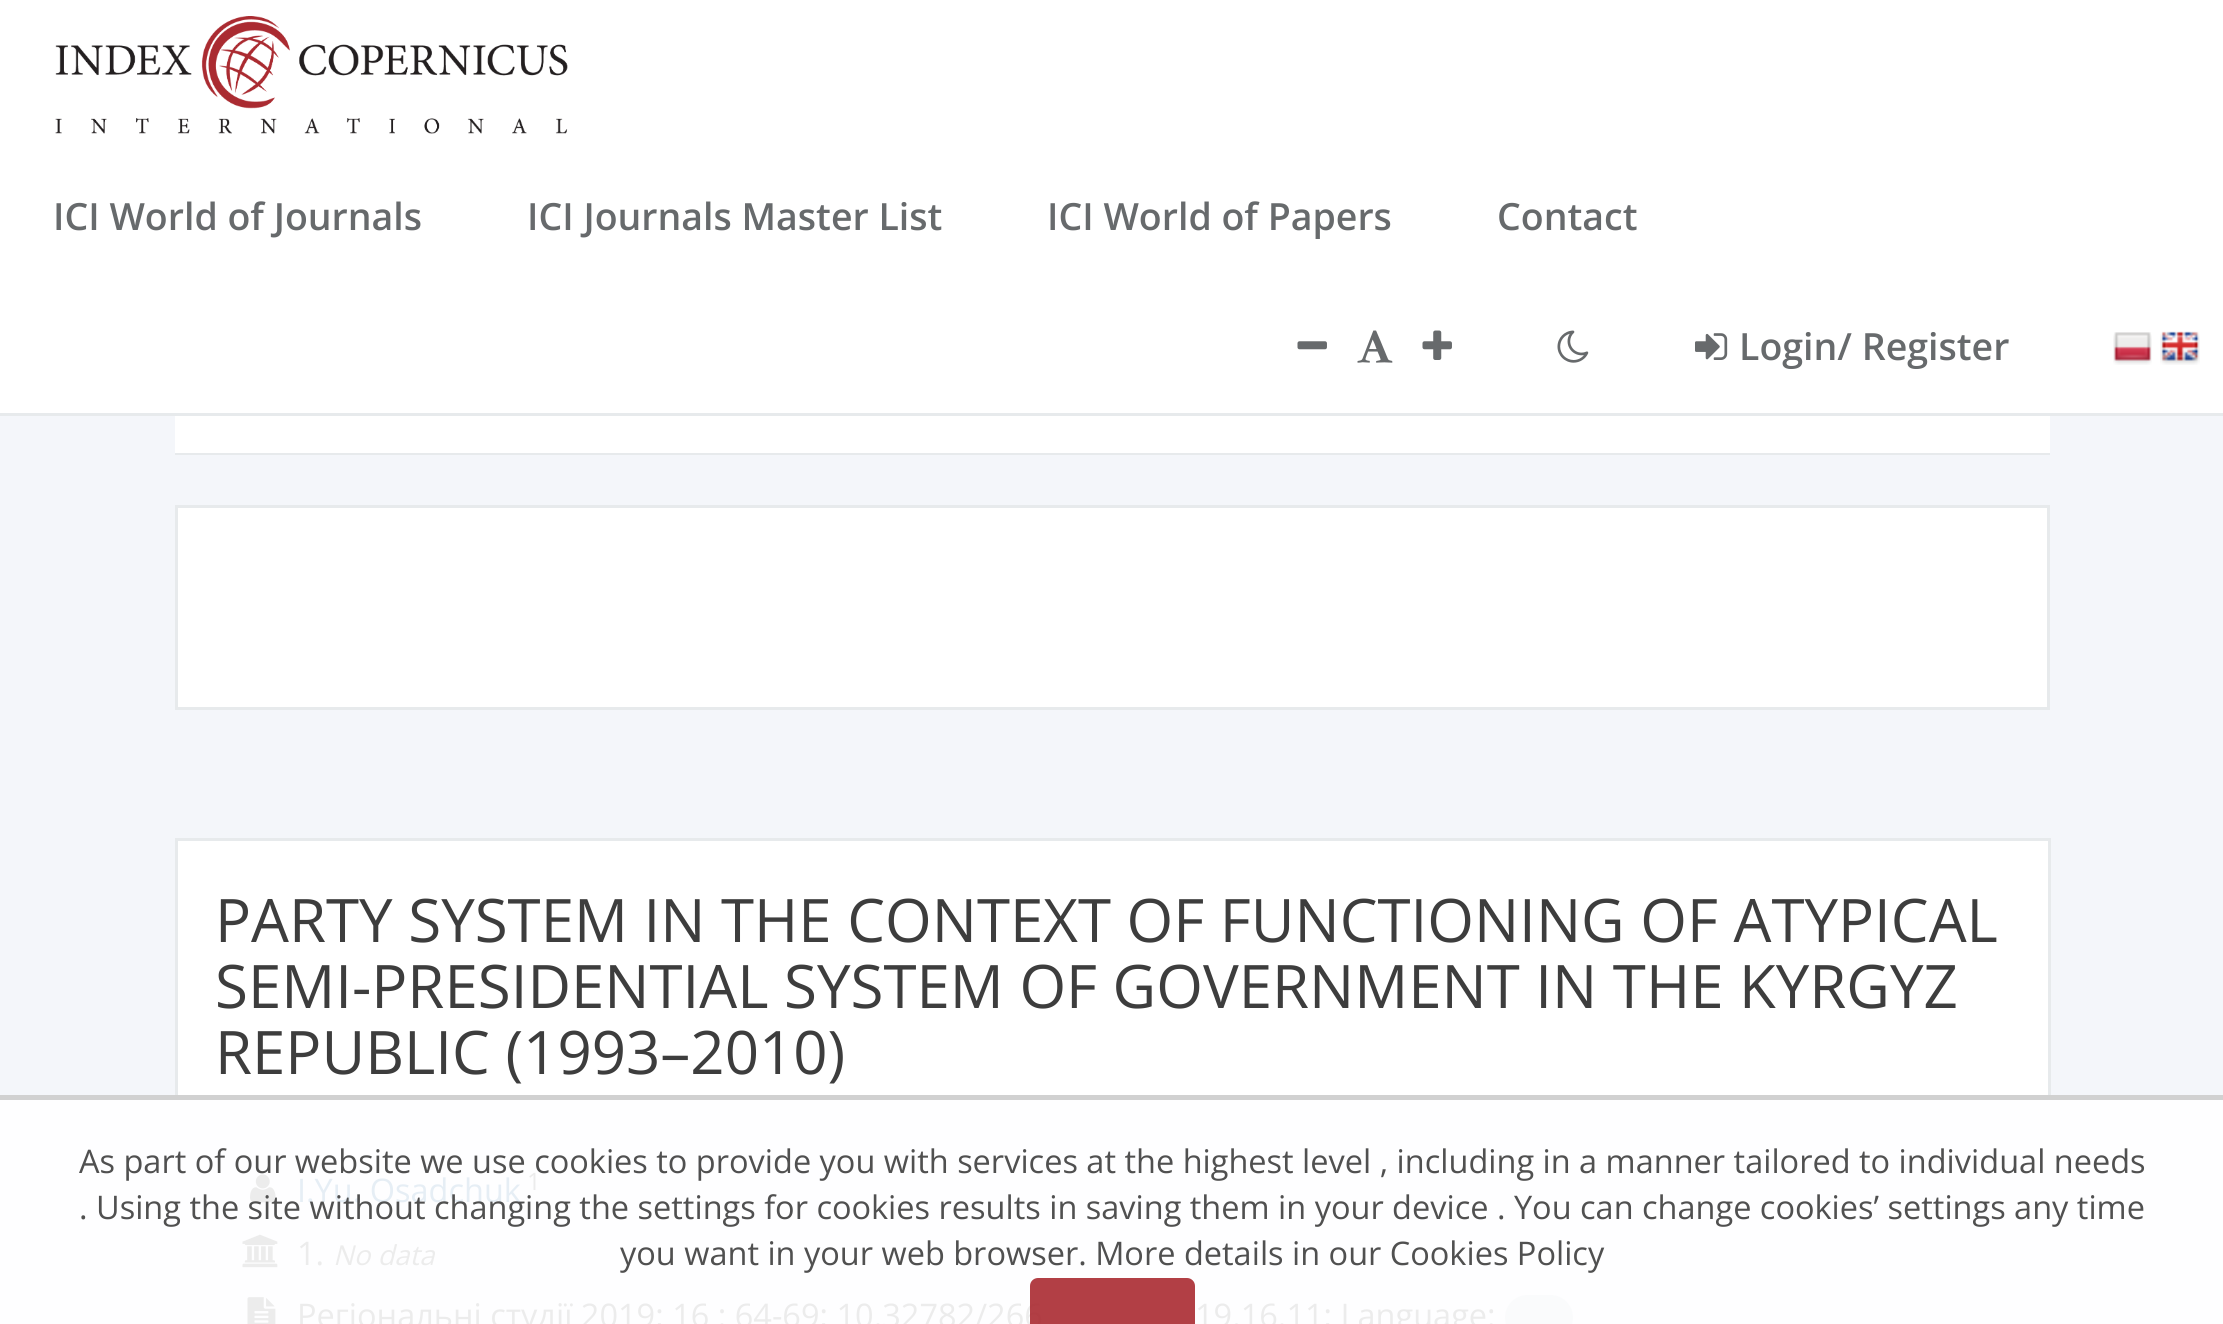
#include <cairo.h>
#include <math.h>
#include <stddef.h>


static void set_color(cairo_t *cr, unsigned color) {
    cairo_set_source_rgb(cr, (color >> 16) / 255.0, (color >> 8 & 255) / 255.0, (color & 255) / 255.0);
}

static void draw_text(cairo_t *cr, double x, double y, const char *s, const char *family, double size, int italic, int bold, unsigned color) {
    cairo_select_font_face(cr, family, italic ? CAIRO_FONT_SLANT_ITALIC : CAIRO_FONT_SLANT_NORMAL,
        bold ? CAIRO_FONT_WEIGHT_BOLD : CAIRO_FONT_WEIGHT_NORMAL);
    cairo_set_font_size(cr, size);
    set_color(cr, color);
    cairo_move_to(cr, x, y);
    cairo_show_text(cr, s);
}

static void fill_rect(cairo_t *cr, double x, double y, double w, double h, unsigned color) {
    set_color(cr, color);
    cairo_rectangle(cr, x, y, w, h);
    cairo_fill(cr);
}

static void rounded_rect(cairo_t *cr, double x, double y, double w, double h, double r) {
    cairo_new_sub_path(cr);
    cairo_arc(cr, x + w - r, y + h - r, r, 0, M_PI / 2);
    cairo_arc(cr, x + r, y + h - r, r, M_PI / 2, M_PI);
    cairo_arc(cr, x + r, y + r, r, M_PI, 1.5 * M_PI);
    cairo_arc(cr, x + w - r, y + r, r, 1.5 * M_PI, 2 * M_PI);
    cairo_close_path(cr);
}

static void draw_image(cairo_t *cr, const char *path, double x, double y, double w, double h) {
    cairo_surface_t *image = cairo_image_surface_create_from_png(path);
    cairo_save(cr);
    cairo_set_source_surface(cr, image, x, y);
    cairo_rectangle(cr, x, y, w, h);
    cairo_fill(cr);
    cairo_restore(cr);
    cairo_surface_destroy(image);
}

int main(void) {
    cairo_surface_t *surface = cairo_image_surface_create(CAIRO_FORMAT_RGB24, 2223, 1324);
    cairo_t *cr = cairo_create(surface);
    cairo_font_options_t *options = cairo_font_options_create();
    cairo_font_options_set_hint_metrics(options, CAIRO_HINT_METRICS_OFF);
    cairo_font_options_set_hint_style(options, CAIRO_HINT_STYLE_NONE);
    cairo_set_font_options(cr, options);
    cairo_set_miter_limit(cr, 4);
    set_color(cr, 0xF4F6FA);
    cairo_paint(cr);
    fill_rect(cr, 0, 0, 2223, 413, 0xFFFFFF);
    fill_rect(cr, 0, 413, 2223, 3, 0xE7EAEC);
    draw_image(cr, "assets/img1.png", 55, 16, 513, 118);
    draw_text(cr, 53, 230, "ICI World of Journals", "Open Sans SemiBold", 37.5, 0, 0, 0x676A6C);
    draw_text(cr, 527, 230, "ICI Journals Master List", "Open Sans SemiBold", 37.5, 0, 0, 0x676A6C);
    draw_text(cr, 1047, 230, "ICI World of Papers", "Open Sans SemiBold", 37.5, 0, 0, 0x676A6C);
    draw_text(cr, 1497, 230, "Contact", "Open Sans SemiBold", 37.5, 0, 0, 0x676A6C);
    draw_image(cr, "assets/img2.png", 1297, 341, 30, 9);
    draw_image(cr, "assets/img3.png", 1357, 330, 36, 33);
    draw_image(cr, "assets/img4.png", 1422, 330, 30, 30);
    draw_image(cr, "assets/img5.png", 1557, 330, 32, 33);
    draw_image(cr, "assets/img6.png", 1695, 333, 33, 27);
    draw_text(cr, 1739, 360, "Login/ Register", "Open Sans SemiBold", 37.5, 0, 0, 0x676A6C);
    draw_image(cr, "assets/img7.png", 2113, 332, 39, 33);
    draw_image(cr, "assets/img8.png", 2160, 331, 40, 34);
    fill_rect(cr, 0, 1100, 2223, 224, 0xFEFEFF);
    fill_rect(cr, 175, 416, 1875, 37, 0xFFFFFF);
    fill_rect(cr, 175, 453, 1875, 2, 0xE7EAEC);
    set_color(cr, 0xFFFFFF);
    cairo_rectangle(cr, 176.5, 506.5, 1872, 202);
    cairo_fill_preserve(cr);
    set_color(cr, 0xE7EAEC);
    cairo_set_line_width(cr, 3);
    cairo_stroke(cr);
    fill_rect(cr, 178, 841, 1870, 254, 0xFFFFFF);
    fill_rect(cr, 175, 838, 1875, 3, 0xE7EAEC);
    fill_rect(cr, 2048, 838, 3, 257, 0xE7EAEC);
    fill_rect(cr, 2048, 1095, 3, 5, 0xFDFDFD);
    fill_rect(cr, 175, 838, 3, 257, 0xE7EAEC);
    fill_rect(cr, 175, 1095, 3, 5, 0xFDFDFD);
    draw_text(cr, 215, 942, "PARTY SYSTEM IN THE CONTEXT OF FUNCTIONING OF ATYPICAL", "Open Sans", 60, 0, 0, 0x3D3D3D);
    draw_text(cr, 215, 1008, "SEMI-PRESIDENTIAL SYSTEM OF GOVERNMENT IN THE KYRGYZ", "Open Sans", 60, 0, 0, 0x3D3D3D);
    draw_text(cr, 215, 1074, "REPUBLIC (1993–2010)", "Open Sans", 60, 0, 0, 0x3D3D3D);
    draw_image(cr, "assets/img9.png", 250, 1174, 26, 29);
    draw_text(cr, 297, 1202, "I.Yu. Osadchuk", "Open Sans", 32.5, 0, 0, 0xE6EEF5);
    draw_text(cr, 527, 1190, "1", "Open Sans", 24, 0, 0, 0xECECEC);
    draw_image(cr, "assets/img10.png", 242, 1234, 36, 34);
    draw_text(cr, 297, 1265, "1.", "Open Sans", 32.5, 0, 0, 0xECECEC);
    draw_text(cr, 333, 1265, "No data", "Open Sans", 27.5, 1, 0, 0xECECEC);
    draw_image(cr, "assets/img11.png", 247, 1297, 29, 27);
    draw_text(cr, 297, 1327, "Регіональні студії 2019; 16 : 64-69; 10.32782/266", "Open Sans", 32.5, 0, 0, 0xECECEC);
    draw_text(cr, 1195, 1327, "19.16.11; Language:", "Open Sans", 32.5, 0, 0, 0xECECEC);
    set_color(cr, 0xFAFBFC);
    rounded_rect(cr, 1505, 1295, 68, 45, 22.5);
    cairo_fill(cr);
    fill_rect(cr, 0, 1095, 2223, 5, 0xD1D1D1);
    draw_text(cr, 79, 1173, "As part of our website we use cookies to provide you with services at the highest level , including in a manner tailored to individual needs", "Open Sans", 32.5, 0, 0, 0x505050);
    draw_text(cr, 79, 1219, ". Using the site without changing the settings for cookies results in saving them in your device . You can change cookies’ settings any time", "Open Sans", 32.5, 0, 0, 0x505050);
    draw_text(cr, 620, 1265, "you want in your web browser. More details in our Cookies Policy", "Open Sans", 32.5, 0, 0, 0x505050);
    cairo_set_source_rgba(cr, 0.667, 0.169, 0.192, 0.9);
    rounded_rect(cr, 1030, 1278, 165, 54, 8);
    cairo_fill(cr);
    cairo_surface_write_to_png(surface, "output.png");
    cairo_font_options_destroy(options);
    cairo_destroy(cr);
    cairo_surface_destroy(surface);
    return 0;
}
